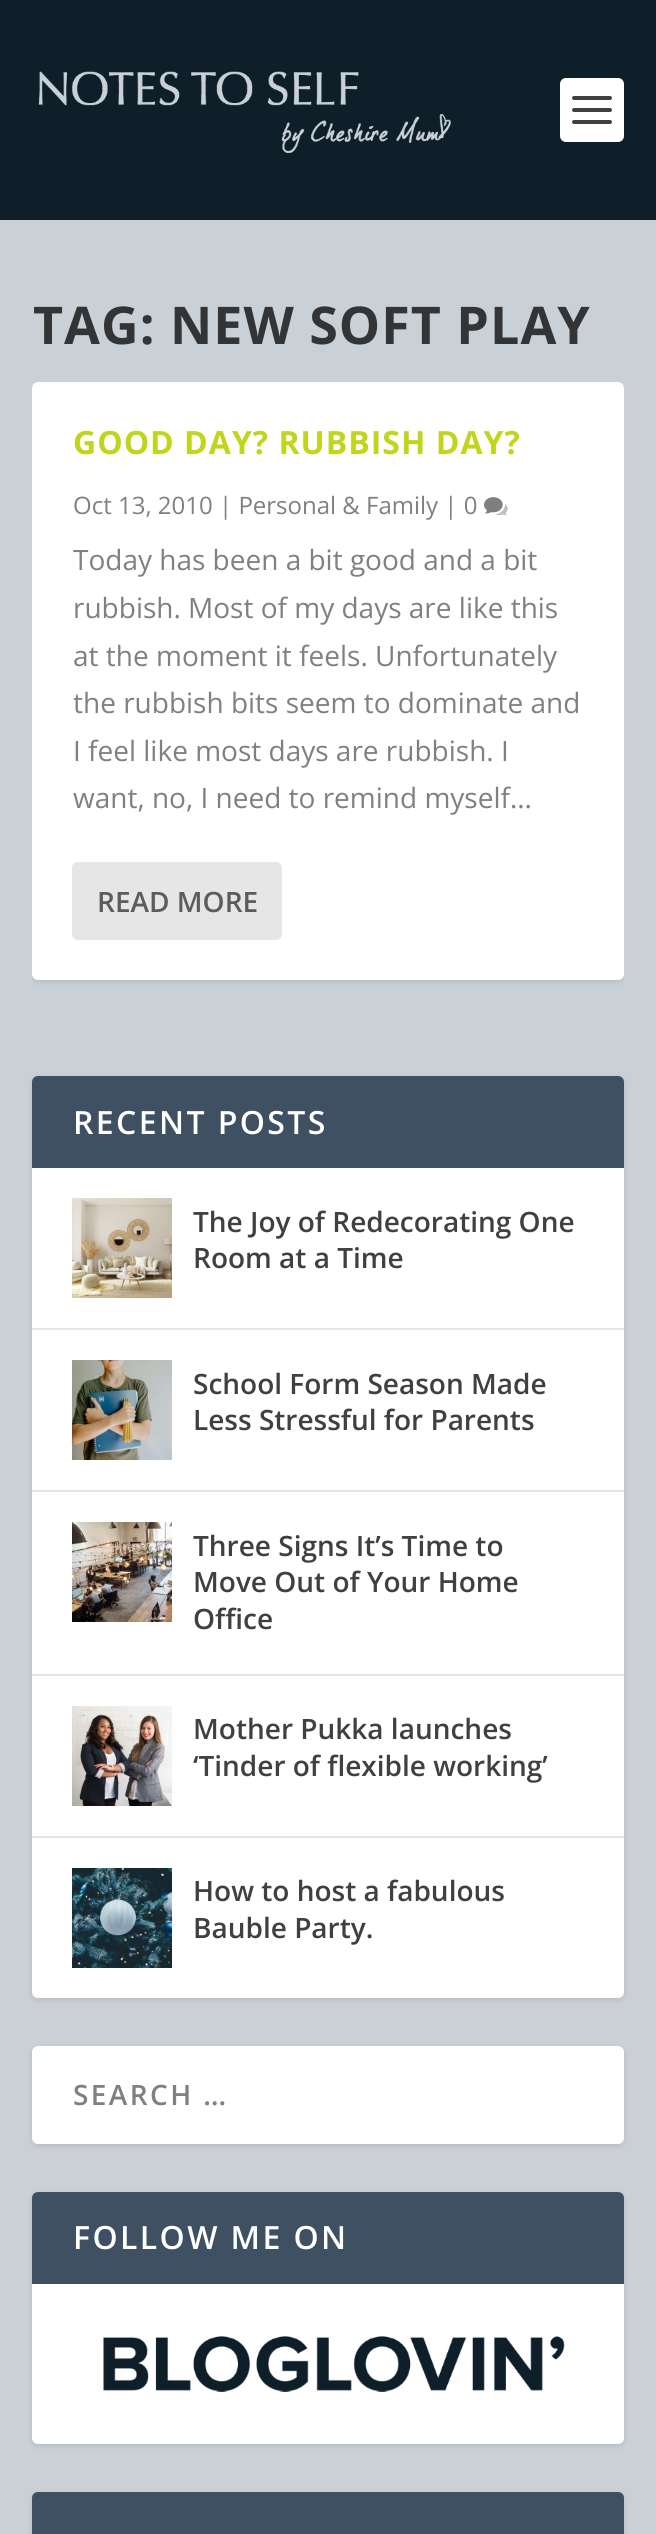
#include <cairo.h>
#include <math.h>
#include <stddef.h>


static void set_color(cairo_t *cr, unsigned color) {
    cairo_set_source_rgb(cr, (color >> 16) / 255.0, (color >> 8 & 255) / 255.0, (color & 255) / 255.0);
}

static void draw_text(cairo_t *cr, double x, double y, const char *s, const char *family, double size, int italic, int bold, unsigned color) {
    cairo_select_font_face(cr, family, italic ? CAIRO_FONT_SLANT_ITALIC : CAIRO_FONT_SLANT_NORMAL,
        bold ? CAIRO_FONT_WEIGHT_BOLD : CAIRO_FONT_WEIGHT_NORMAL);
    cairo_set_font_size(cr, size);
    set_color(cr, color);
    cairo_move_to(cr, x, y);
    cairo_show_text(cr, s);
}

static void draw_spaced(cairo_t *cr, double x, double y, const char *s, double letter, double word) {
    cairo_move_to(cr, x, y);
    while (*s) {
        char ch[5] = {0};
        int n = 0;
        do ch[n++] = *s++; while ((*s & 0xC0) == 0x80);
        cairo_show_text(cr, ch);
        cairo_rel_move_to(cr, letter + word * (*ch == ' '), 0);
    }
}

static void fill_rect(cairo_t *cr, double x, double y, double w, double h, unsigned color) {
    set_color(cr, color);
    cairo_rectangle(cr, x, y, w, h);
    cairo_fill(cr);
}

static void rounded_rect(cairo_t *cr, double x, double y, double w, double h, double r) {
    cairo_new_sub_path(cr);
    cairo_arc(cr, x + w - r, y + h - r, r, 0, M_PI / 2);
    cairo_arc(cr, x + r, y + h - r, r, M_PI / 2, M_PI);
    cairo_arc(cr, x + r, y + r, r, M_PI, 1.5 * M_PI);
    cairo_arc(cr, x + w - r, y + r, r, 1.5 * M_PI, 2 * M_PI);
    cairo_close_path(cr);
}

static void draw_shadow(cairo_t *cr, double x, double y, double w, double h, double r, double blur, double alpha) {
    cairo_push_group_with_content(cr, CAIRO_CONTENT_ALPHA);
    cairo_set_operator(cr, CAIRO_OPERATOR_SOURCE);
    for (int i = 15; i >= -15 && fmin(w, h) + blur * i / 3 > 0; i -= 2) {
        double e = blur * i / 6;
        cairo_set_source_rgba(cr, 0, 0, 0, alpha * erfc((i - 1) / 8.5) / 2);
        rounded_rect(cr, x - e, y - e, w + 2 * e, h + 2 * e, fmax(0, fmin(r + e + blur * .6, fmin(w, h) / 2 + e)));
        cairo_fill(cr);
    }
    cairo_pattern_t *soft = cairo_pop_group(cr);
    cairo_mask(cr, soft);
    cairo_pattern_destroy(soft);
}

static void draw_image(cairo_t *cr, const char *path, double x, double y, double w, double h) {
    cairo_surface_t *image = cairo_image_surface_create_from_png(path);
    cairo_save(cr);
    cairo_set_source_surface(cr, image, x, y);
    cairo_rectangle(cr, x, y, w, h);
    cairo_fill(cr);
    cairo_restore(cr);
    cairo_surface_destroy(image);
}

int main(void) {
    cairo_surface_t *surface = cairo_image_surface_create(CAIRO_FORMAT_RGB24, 656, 2534);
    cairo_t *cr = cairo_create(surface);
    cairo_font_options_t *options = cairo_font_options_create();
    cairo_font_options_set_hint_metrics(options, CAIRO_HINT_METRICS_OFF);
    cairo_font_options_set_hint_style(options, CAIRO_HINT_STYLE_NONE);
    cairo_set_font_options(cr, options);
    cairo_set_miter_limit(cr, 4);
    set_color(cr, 0xC9D1D6);
    cairo_paint(cr);
    fill_rect(cr, 0, 0, 656, 220, 0x0E1F2A);
    draw_image(cr, "assets/img1.png", 38, 71, 413, 82);
    set_color(cr, 0xFFFFFF);
    rounded_rect(cr, 560, 78, 64, 64, 6);
    cairo_fill(cr);
    set_color(cr, 0x404040);
    rounded_rect(cr, 572, 96, 40, 4, 2);
    cairo_fill(cr);
    rounded_rect(cr, 572, 108, 40, 4, 2);
    cairo_fill(cr);
    rounded_rect(cr, 572, 120, 40, 4, 2);
    cairo_fill(cr);
    cairo_select_font_face(cr, "Open Sans", CAIRO_FONT_SLANT_NORMAL, CAIRO_FONT_WEIGHT_BOLD);
    cairo_set_font_size(cr, 52);
    set_color(cr, 0x323436);
    draw_spaced(cr, 33, 344, "TAG: NEW SOFT PLAY", 1, 0);
    cairo_save(cr);
    rounded_rect(cr, 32, 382, 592, 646, 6);
    cairo_clip(cr);
    set_color(cr, 0x000000);
    draw_shadow(cr, 32, 384, 592, 598, 6, 3, 0.1);
    cairo_restore(cr);
    set_color(cr, 0xFFFFFF);
    rounded_rect(cr, 32, 382, 592, 598, 6);
    cairo_fill(cr);
    cairo_set_font_size(cr, 32);
    set_color(cr, 0xC1D51C);
    draw_spaced(cr, 73, 454, "GOOD DAY? RUBBISH DAY?", 1, 0);
    draw_text(cr, 73, 514, "Oct 13, 2010 | Personal & Family | 0", "Open Sans", 24, 0, 0, 0x808080);
    draw_image(cr, "assets/img2.png", 484, 497, 24, 18);
    draw_text(cr, 73, 570, "Today has been a bit good and a bit", "Open Sans", 28, 0, 0, 0x808080);
    draw_text(cr, 73, 618, "rubbish. Most of my days are like this", "Open Sans", 28, 0, 0, 0x808080);
    draw_text(cr, 73, 666, "at the moment it feels. Unfortunately", "Open Sans", 28, 0, 0, 0x808080);
    draw_text(cr, 73, 713, "the rubbish bits seem to dominate and", "Open Sans", 28, 0, 0, 0x808080);
    draw_text(cr, 73, 761, "I feel like most days are rubbish. I", "Open Sans", 28, 0, 0, 0x808080);
    draw_text(cr, 73, 808, "want, no, I need to remind myself...", "Open Sans", 28, 0, 0, 0x808080);
    set_color(cr, 0xE6E6E6);
    rounded_rect(cr, 72, 862, 210, 78, 6);
    cairo_fill(cr);
    draw_text(cr, 97, 912, "READ MORE", "Open Sans SemiBold", 28, 0, 0, 0x5C5C5C);
    set_color(cr, 0x000000);
    draw_shadow(cr, 32, 1078, 592, 922, 6, 3, 0.1);
    set_color(cr, 0xFFFFFF);
    rounded_rect(cr, 32, 1076, 592, 922, 6);
    cairo_fill(cr);
    set_color(cr, 0x3E5062);
    cairo_new_path(cr);
    cairo_move_to(cr, 38, 1076);
    cairo_line_to(cr, 618, 1076);
    cairo_curve_to(cr, 621.5, 1076, 624, 1078.5, 624, 1082);
    cairo_line_to(cr, 624, 1168);
    cairo_line_to(cr, 32, 1168);
    cairo_line_to(cr, 32, 1082);
    cairo_curve_to(cr, 32, 1078.5, 34.5, 1076, 38, 1076);
    cairo_close_path(cr);
    cairo_fill(cr);
    cairo_set_font_size(cr, 32);
    set_color(cr, 0xFFFFFF);
    draw_spaced(cr, 73, 1134, "RECENT POSTS", 2.4, 0);
    fill_rect(cr, 32, 1328, 592, 2, 0xE6E6E6);
    draw_image(cr, "assets/img3.png", 72, 1198, 100, 100);
    draw_text(cr, 193, 1232, "The Joy of Redecorating One", "Open Sans SemiBold", 28, 0, 0, 0x404040);
    draw_text(cr, 193, 1268, "Room at a Time", "Open Sans SemiBold", 28, 0, 0, 0x404040);
    fill_rect(cr, 32, 1490, 592, 2, 0xE6E6E6);
    draw_image(cr, "assets/img4.png", 72, 1360, 100, 100);
    draw_text(cr, 193, 1394, "School Form Season Made", "Open Sans SemiBold", 28, 0, 0, 0x404040);
    draw_text(cr, 193, 1430, "Less Stressful for Parents", "Open Sans SemiBold", 28, 0, 0, 0x404040);
    fill_rect(cr, 32, 1674, 592, 2, 0xE6E6E6);
    draw_image(cr, "assets/img5.png", 72, 1522, 100, 100);
    draw_text(cr, 193, 1556, "Three Signs It’s Time to", "Open Sans SemiBold", 28, 0, 0, 0x404040);
    draw_text(cr, 193, 1592, "Move Out of Your Home", "Open Sans SemiBold", 28, 0, 0, 0x404040);
    draw_text(cr, 193, 1629, "Office", "Open Sans SemiBold", 28, 0, 0, 0x404040);
    fill_rect(cr, 32, 1836, 592, 2, 0xE6E6E6);
    draw_image(cr, "assets/img6.png", 72, 1706, 100, 100);
    draw_text(cr, 193, 1739, "Mother Pukka launches", "Open Sans SemiBold", 28, 0, 0, 0x404040);
    draw_text(cr, 193, 1776, "‘Tinder of flexible working’", "Open Sans SemiBold", 28, 0, 0, 0x404040);
    draw_image(cr, "assets/img7.png", 72, 1868, 100, 100);
    draw_text(cr, 193, 1901, "How to host a fabulous", "Open Sans SemiBold", 28, 0, 0, 0x404040);
    draw_text(cr, 193, 1938, "Bauble Party.", "Open Sans SemiBold", 28, 0, 0, 0x404040);
    set_color(cr, 0x000000);
    draw_shadow(cr, 32, 2048, 592, 98, 6, 3, 0.1);
    set_color(cr, 0xFFFFFF);
    rounded_rect(cr, 32, 2046, 592, 98, 6);
    cairo_fill(cr);
    set_color(cr, 0x808080);
    draw_spaced(cr, 73, 2105, "SEARCH …", 2.4, 0);
    set_color(cr, 0x000000);
    draw_shadow(cr, 32, 2194, 592, 252, 6, 3, 0.1);
    set_color(cr, 0xFFFFFF);
    rounded_rect(cr, 32, 2192, 592, 252, 6);
    cairo_fill(cr);
    set_color(cr, 0x3E5062);
    cairo_new_path(cr);
    cairo_move_to(cr, 38, 2192);
    cairo_line_to(cr, 618, 2192);
    cairo_curve_to(cr, 621.5, 2192, 624, 2194.5, 624, 2198);
    cairo_line_to(cr, 624, 2284);
    cairo_line_to(cr, 32, 2284);
    cairo_line_to(cr, 32, 2198);
    cairo_curve_to(cr, 32, 2194.5, 34.5, 2192, 38, 2192);
    cairo_close_path(cr);
    cairo_fill(cr);
    cairo_set_font_size(cr, 32);
    set_color(cr, 0xFFFFFF);
    draw_spaced(cr, 73, 2249, "FOLLOW ME ON", 2.4, 0);
    draw_image(cr, "assets/img8.png", 103, 2336, 462, 56);
    set_color(cr, 0x000000);
    draw_shadow(cr, 32, 2494, 592, 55, 6, 3, 0.1);
    set_color(cr, 0x3E5062);
    cairo_new_path(cr);
    cairo_move_to(cr, 38, 2492);
    cairo_line_to(cr, 618, 2492);
    cairo_curve_to(cr, 621.5, 2492, 624, 2494.5, 624, 2498);
    cairo_line_to(cr, 624, 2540);
    cairo_line_to(cr, 32, 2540);
    cairo_line_to(cr, 32, 2498);
    cairo_curve_to(cr, 32, 2494.5, 34.5, 2492, 38, 2492);
    cairo_close_path(cr);
    cairo_fill(cr);
    cairo_surface_write_to_png(surface, "output.png");
    cairo_font_options_destroy(options);
    cairo_destroy(cr);
    cairo_surface_destroy(surface);
    return 0;
}
